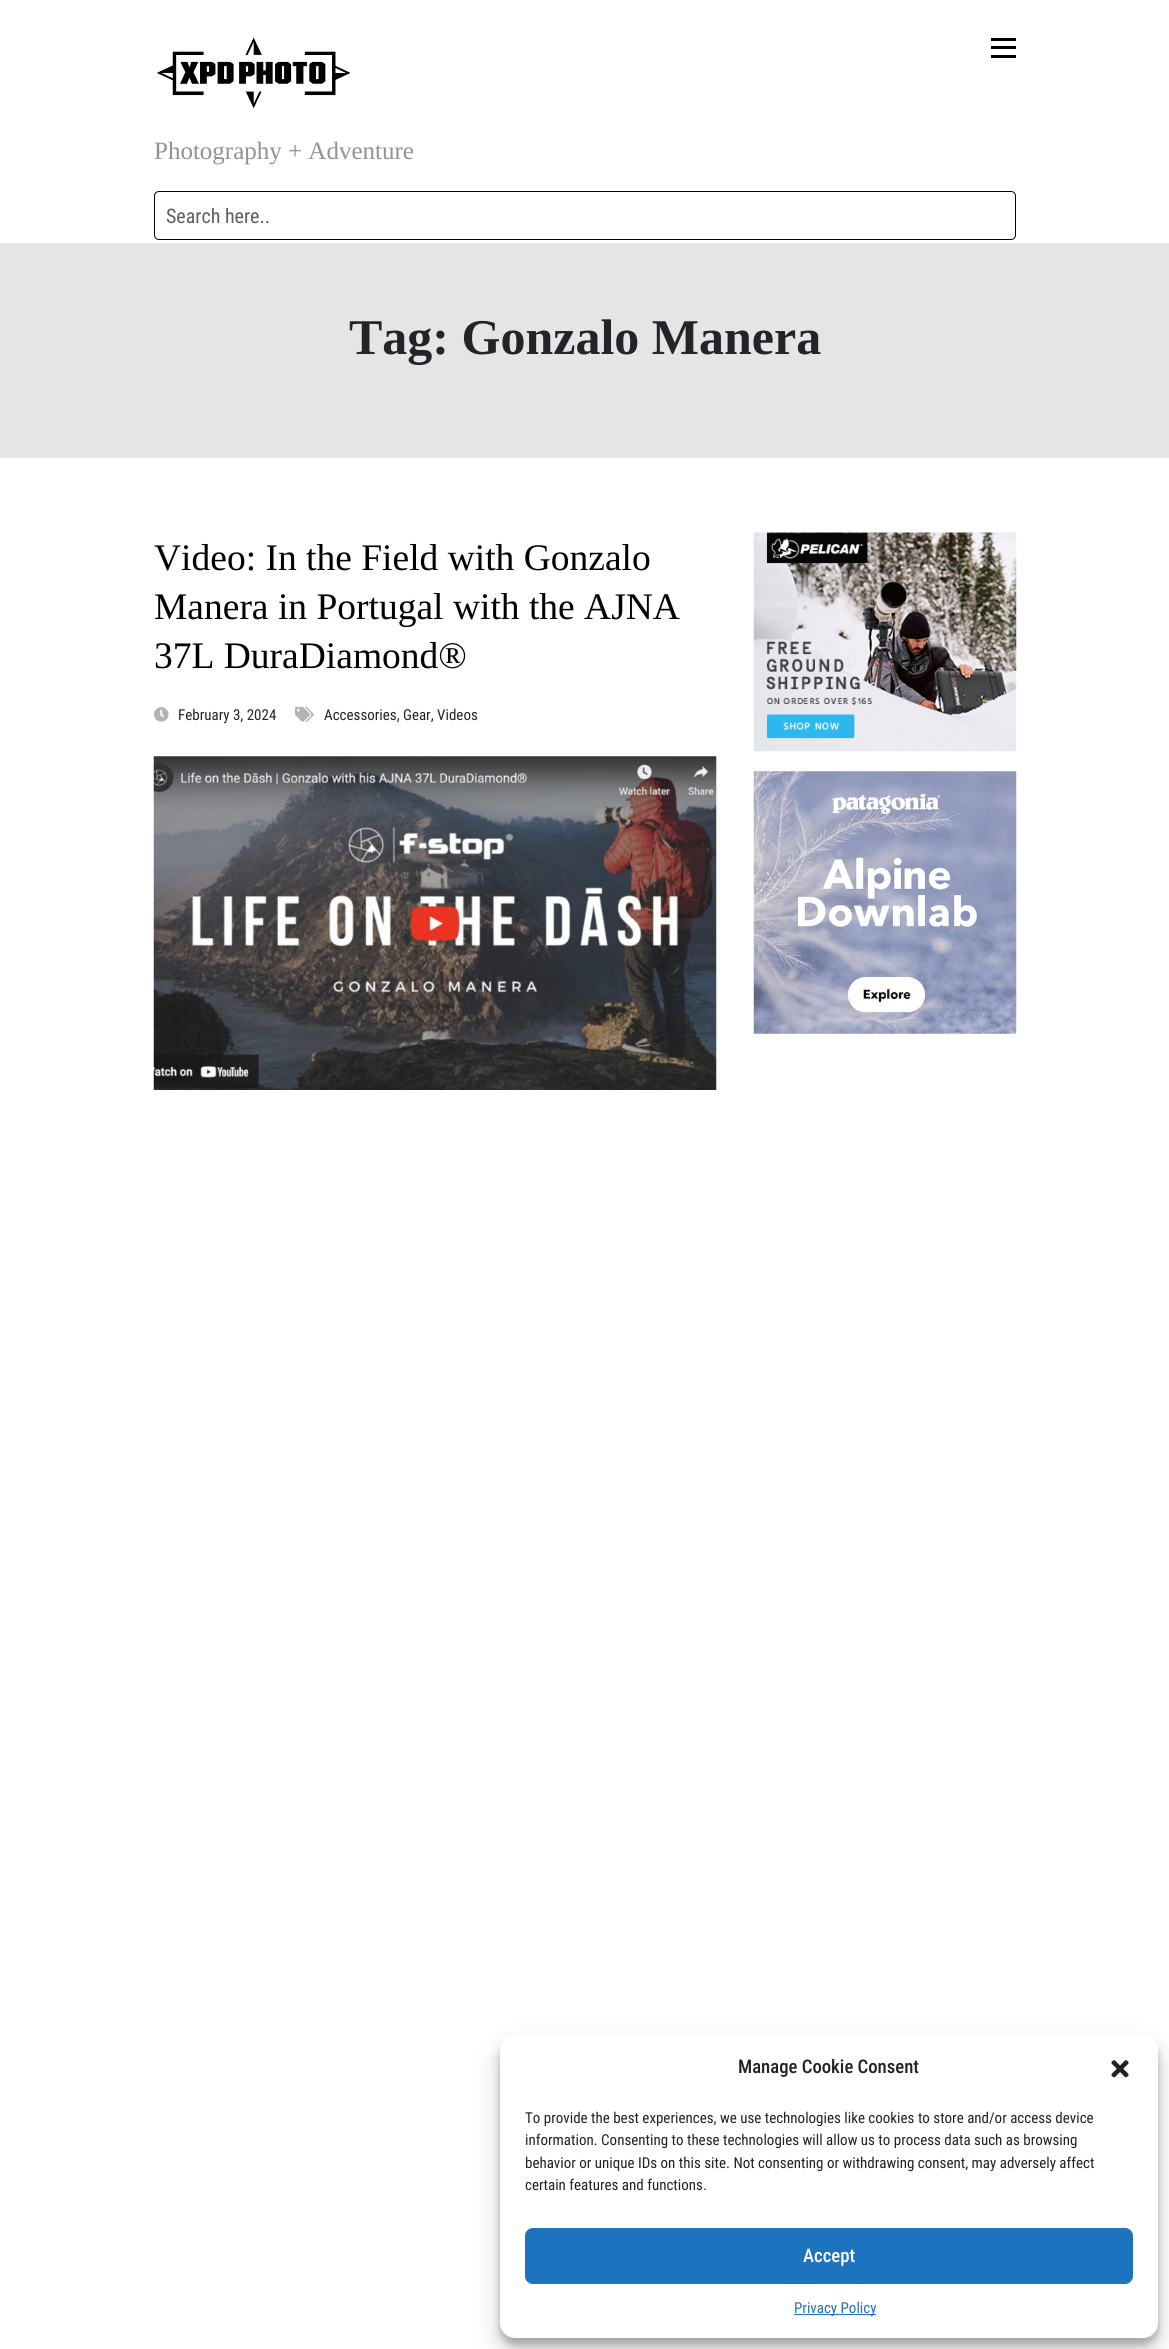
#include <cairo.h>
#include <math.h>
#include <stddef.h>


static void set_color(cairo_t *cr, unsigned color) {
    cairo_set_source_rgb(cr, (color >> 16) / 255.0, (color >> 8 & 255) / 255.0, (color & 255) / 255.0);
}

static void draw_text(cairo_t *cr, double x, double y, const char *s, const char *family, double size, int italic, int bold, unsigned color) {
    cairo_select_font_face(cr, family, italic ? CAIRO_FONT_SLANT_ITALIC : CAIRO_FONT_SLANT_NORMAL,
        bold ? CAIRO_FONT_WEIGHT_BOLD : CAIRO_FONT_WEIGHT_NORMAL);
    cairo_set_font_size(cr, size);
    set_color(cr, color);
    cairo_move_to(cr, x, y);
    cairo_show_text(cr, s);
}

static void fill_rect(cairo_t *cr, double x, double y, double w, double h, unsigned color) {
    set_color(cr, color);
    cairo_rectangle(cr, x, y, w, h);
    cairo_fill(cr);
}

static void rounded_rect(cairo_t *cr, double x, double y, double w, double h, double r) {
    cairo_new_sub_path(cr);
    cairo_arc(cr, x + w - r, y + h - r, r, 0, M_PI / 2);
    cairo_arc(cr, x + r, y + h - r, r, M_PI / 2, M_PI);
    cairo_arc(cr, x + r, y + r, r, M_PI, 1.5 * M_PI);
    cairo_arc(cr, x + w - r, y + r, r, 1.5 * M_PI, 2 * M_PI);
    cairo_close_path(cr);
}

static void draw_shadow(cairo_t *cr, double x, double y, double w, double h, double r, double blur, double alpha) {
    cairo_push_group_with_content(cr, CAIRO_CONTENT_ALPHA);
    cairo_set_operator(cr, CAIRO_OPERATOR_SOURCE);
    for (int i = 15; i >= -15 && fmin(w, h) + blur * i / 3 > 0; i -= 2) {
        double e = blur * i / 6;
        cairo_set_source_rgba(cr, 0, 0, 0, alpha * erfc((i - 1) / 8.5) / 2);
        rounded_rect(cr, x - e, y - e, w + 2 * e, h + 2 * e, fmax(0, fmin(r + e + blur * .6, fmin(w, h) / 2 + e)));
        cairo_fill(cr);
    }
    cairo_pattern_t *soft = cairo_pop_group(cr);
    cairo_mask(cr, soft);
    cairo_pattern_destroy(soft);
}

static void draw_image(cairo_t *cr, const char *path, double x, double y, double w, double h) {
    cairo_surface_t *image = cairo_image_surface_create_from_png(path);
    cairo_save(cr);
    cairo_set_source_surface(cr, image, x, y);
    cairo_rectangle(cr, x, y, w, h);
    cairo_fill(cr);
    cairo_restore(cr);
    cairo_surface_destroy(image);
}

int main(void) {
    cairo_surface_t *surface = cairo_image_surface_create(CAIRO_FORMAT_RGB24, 1169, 2349);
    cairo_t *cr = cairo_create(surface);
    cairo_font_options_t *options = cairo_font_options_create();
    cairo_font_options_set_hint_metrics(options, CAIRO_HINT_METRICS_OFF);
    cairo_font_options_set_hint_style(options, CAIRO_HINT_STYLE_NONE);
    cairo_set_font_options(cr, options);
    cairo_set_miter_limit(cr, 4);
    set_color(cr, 0xFFFFFF);
    cairo_paint(cr);
    draw_image(cr, "assets/img1.png", 157, 37, 194, 72);
    fill_rect(cr, 991, 55, 25, 3, 0x000000);
    fill_rect(cr, 991, 38, 25, 3, 0x000000);
    fill_rect(cr, 991, 46, 25, 3, 0x000000);
    draw_text(cr, 154, 159, "Photography + Adventure", "Liberation Serif", 25, 0, 0, 0x909294);
    rounded_rect(cr, 154.5, 191.5, 861, 48, 4.5);
    set_color(cr, 0x000000);
    cairo_set_line_width(cr, 1);
    cairo_stroke(cr);
    draw_text(cr, 166, 223, "Search here..", "Roboto Condensed", 20, 0, 0, 0x5D5D5D);
    fill_rect(cr, 0, 243, 1169, 215, 0xE5E5E5);
    draw_text(cr, 349, 354, "Tag: Gonzalo Manera", "Liberation Serif", 50, 0, 1, 0x212529);
    draw_text(cr, 154, 570, "Video: In the Field with Gonzalo", "Liberation Serif", 37.5, 0, 0, 0x000000);
    draw_text(cr, 154, 619, "Manera in Portugal with the AJNA", "Liberation Serif", 37.5, 0, 0, 0x000000);
    draw_text(cr, 154, 668, "37L DuraDiamond®", "Liberation Serif", 37.5, 0, 0, 0x000000);
    draw_image(cr, "assets/img2.png", 154, 707, 15, 15);
    draw_text(cr, 178, 720, "February 3, 2024", "Roboto Condensed", 15, 0, 0, 0x212529);
    draw_image(cr, "assets/img3.png", 295, 706, 19, 16);
    draw_text(cr, 324, 720, "Accessories, Gear, Videos", "Roboto Condensed", 15, 0, 0, 0x212529);
    draw_image(cr, "assets/img4.png", 153, 756, 564, 334);
    draw_image(cr, "assets/img5.png", 753, 532, 264, 220);
    draw_image(cr, "assets/img6.png", 753, 771, 264, 263);
    set_color(cr, 0x000000);
    draw_shadow(cr, 500, 2043, 658, 302, 15, 4, 0.23);
    draw_shadow(cr, 500, 2048, 658, 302, 15, 12.5, 0.19);
    set_color(cr, 0xFFFFFF);
    rounded_rect(cr, 500, 2035, 658, 303, 15);
    cairo_fill(cr);
    draw_text(cr, 738, 2073, "Manage Cookie Consent", "Roboto Condensed Medium", 18.75, 0, 0, 0x222222);
    draw_image(cr, "assets/img7.png", 1111, 2060, 18, 18);
    draw_text(cr, 525, 2123, "To provide the best experiences, we use technologies like cookies to store and/or access device", "Roboto Condensed", 15, 0, 0, 0x222222);
    draw_text(cr, 525, 2145, "information. Consenting to these technologies will allow us to process data such as browsing", "Roboto Condensed", 15, 0, 0, 0x222222);
    draw_text(cr, 525, 2168, "behavior or unique IDs on this site. Not consenting or withdrawing consent, may adversely affect", "Roboto Condensed", 15, 0, 0, 0x222222);
    draw_text(cr, 525, 2190, "certain features and functions.", "Roboto Condensed", 15, 0, 0, 0x222222);
    set_color(cr, 0x1E73BE);
    rounded_rect(cr, 525.5, 2228.5, 607, 55, 7.5);
    cairo_fill_preserve(cr);
    cairo_stroke(cr);
    draw_text(cr, 803, 2262, "Accept", "Roboto Condensed Medium", 18.75, 0, 0, 0xFFFFFF);
    fill_rect(cr, 794, 2314, 82, 1, 0x1E73BE);
    draw_text(cr, 794, 2313, "Privacy Policy", "Roboto Condensed", 15, 0, 0, 0x1E73BE);
    cairo_surface_write_to_png(surface, "output.png");
    cairo_font_options_destroy(options);
    cairo_destroy(cr);
    cairo_surface_destroy(surface);
    return 0;
}
